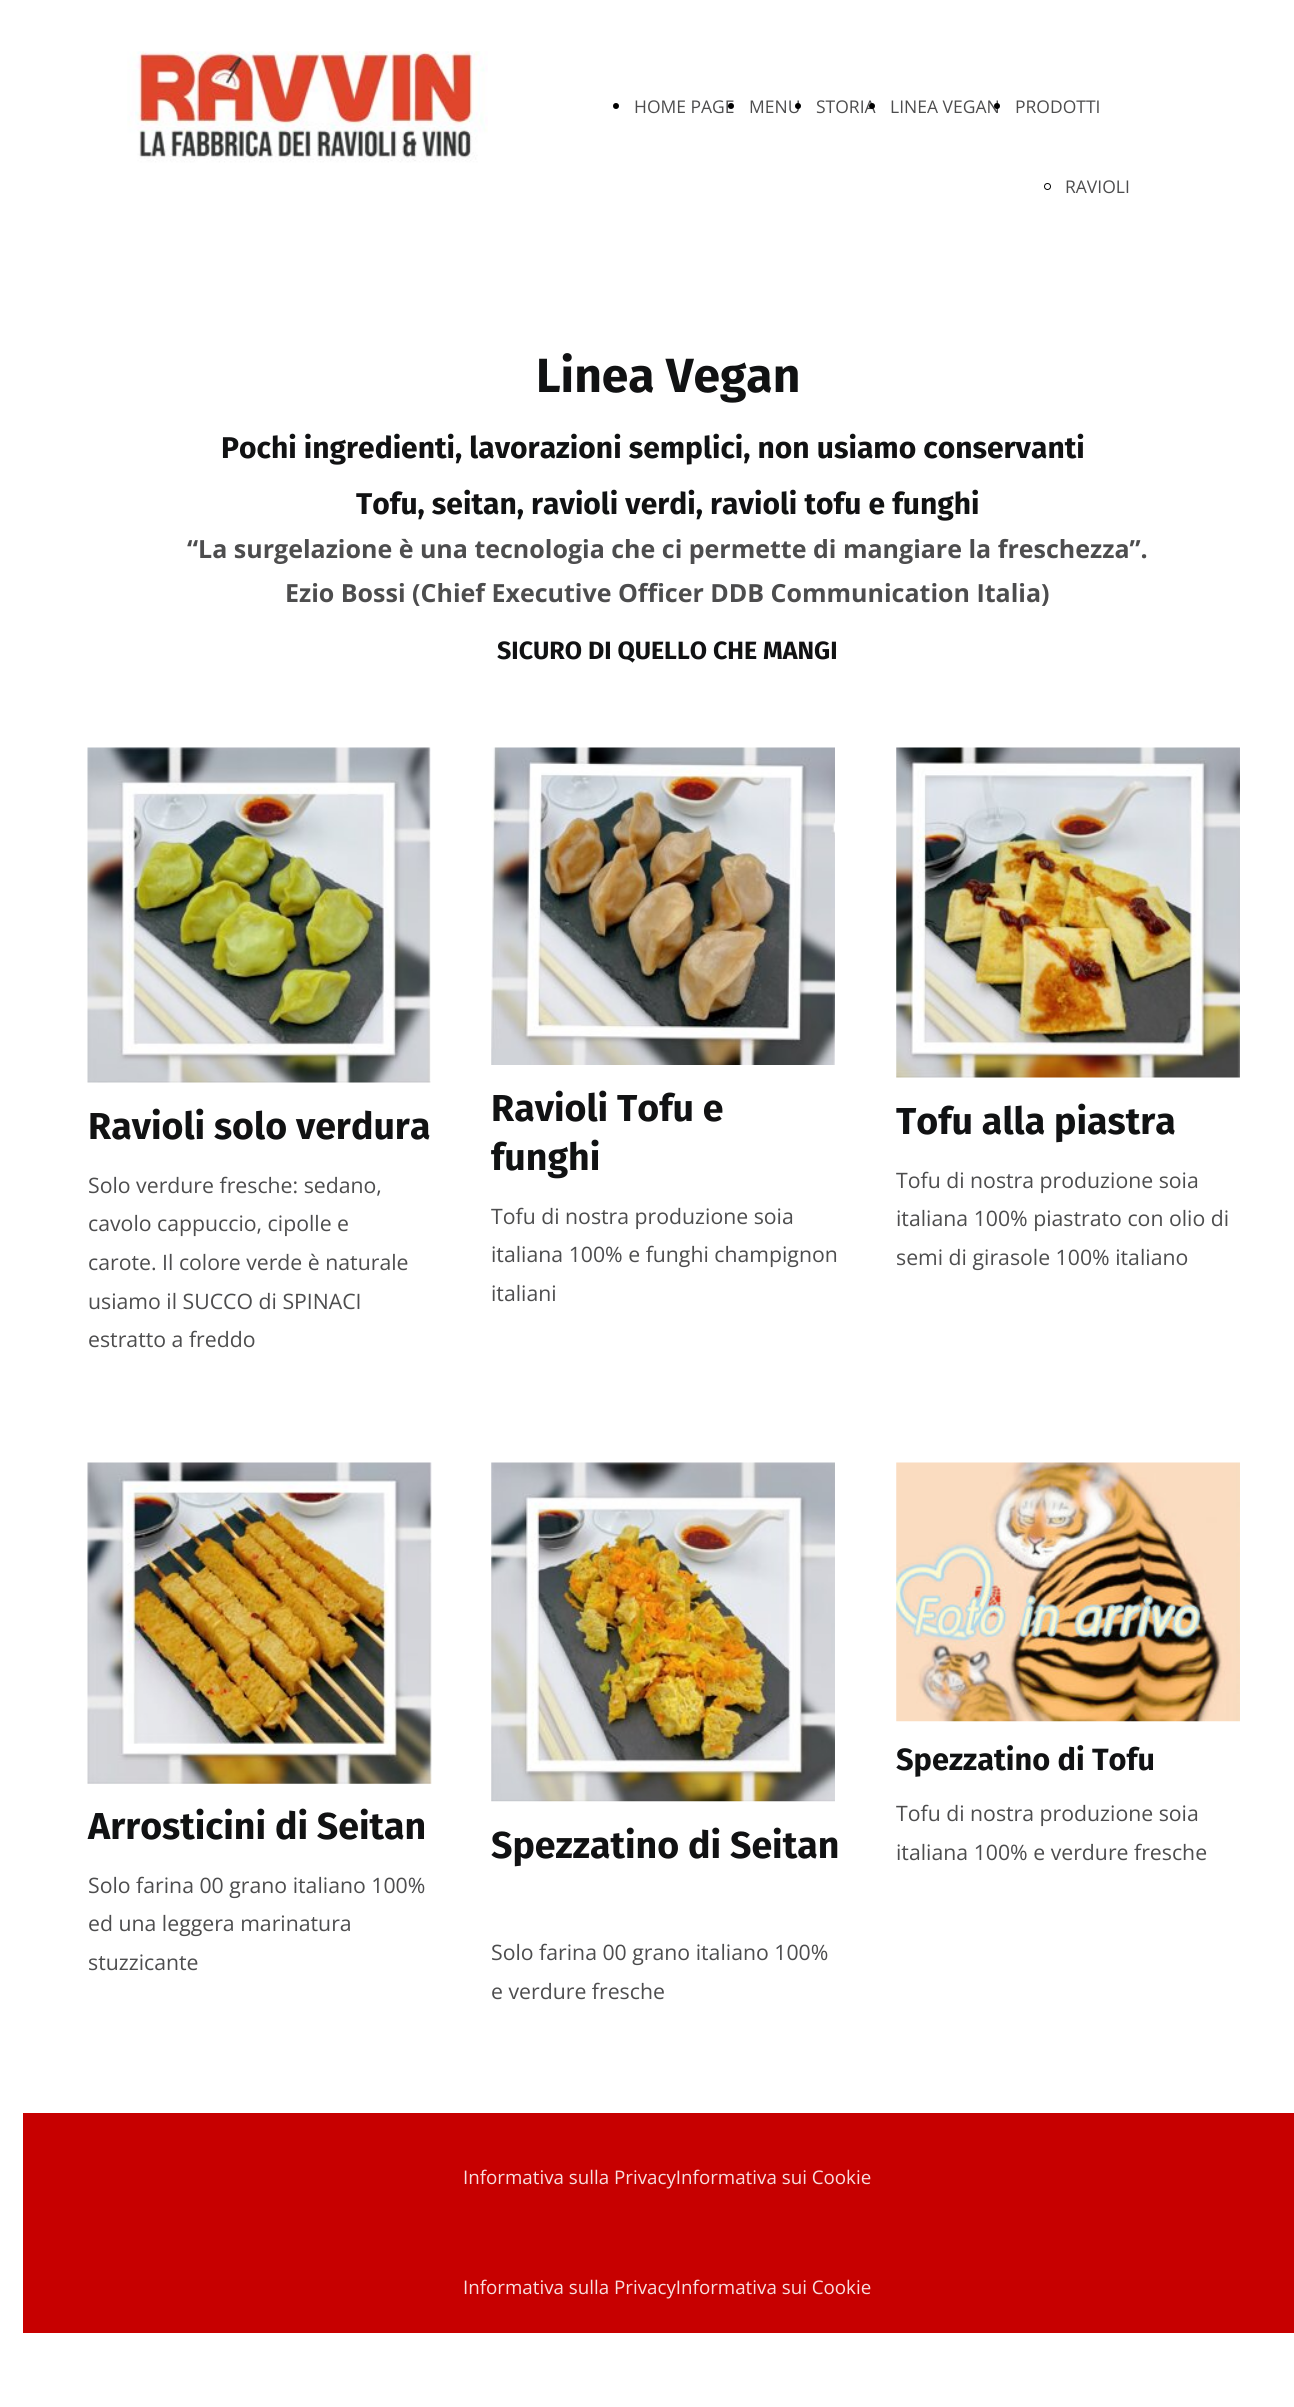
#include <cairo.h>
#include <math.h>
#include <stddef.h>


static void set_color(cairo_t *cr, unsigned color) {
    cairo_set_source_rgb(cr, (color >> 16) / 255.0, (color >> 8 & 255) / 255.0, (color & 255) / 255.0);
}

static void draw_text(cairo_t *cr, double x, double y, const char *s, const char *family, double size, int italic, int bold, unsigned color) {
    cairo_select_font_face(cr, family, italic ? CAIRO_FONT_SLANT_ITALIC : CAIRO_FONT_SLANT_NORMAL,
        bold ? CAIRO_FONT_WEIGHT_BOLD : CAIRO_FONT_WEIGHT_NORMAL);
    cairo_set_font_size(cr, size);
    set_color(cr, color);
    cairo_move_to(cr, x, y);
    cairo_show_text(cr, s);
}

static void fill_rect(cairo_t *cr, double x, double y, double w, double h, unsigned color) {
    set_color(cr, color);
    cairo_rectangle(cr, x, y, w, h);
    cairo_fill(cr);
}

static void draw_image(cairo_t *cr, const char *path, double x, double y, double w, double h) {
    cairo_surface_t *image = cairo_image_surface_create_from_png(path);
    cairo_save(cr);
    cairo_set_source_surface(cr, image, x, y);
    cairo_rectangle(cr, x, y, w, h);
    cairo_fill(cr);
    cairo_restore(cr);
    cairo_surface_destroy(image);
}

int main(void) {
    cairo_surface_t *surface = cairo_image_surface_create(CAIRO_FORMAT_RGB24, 1294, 2407);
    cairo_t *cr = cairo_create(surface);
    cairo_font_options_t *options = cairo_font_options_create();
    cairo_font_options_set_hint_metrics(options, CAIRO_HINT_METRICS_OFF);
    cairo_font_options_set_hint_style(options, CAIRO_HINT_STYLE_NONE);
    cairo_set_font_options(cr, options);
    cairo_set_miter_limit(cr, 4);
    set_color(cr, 0xFFFFFF);
    cairo_paint(cr);
    draw_image(cr, "assets/img1.png", 127, 51, 361, 112);
    set_color(cr, 0x000000);
    cairo_arc(cr, 616, 106, 3, 0, 2 * M_PI);
    cairo_fill(cr);
    draw_text(cr, 634, 113, "HOME PAGE", "Open Sans", 17.5, 0, 0, 0x4D4D4E);
    set_color(cr, 0x000000);
    cairo_new_path(cr);
    cairo_arc(cr, 731, 106, 3, 0, 2 * M_PI);
    cairo_fill(cr);
    draw_text(cr, 749, 113, "MENU", "Open Sans", 17.5, 0, 0, 0x4D4D4E);
    set_color(cr, 0x000000);
    cairo_new_path(cr);
    cairo_arc(cr, 798, 106, 3, 0, 2 * M_PI);
    cairo_fill(cr);
    draw_text(cr, 816, 113, "STORIA", "Open Sans", 17.5, 0, 0, 0x4D4D4E);
    set_color(cr, 0x000000);
    cairo_new_path(cr);
    cairo_arc(cr, 872, 106, 3, 0, 2 * M_PI);
    cairo_fill(cr);
    draw_text(cr, 890, 113, "LINEA VEGAN", "Open Sans", 17.5, 0, 0, 0x4D4D4E);
    set_color(cr, 0x000000);
    cairo_new_path(cr);
    cairo_arc(cr, 997, 106, 3, 0, 2 * M_PI);
    cairo_fill(cr);
    draw_text(cr, 1015, 113, "PRODOTTI", "Open Sans", 17.5, 0, 0, 0x4D4D4E);
    cairo_new_path(cr);
    cairo_arc(cr, 1047.5, 186.5, 3, 0, 2 * M_PI);
    set_color(cr, 0x000000);
    cairo_set_line_width(cr, 1);
    cairo_stroke(cr);
    draw_text(cr, 1065, 193, "RAVIOLI", "Open Sans", 17.5, 0, 0, 0x4D4D4E);
    draw_text(cr, 536, 392, "Linea Vegan", "Fira Sans", 48, 0, 1, 0x111213);
    draw_text(cr, 221, 458, "Pochi ingredienti, lavorazioni semplici, non usiamo conservanti", "Fira Sans", 30, 0, 1, 0x111213);
    draw_text(cr, 356, 514, "Tofu, seitan, ravioli verdi, ravioli tofu e funghi", "Fira Sans", 30, 0, 1, 0x111213);
    draw_text(cr, 187, 558, "“La surgelazione è una tecnologia che ci permette di mangiare la freschezza”.", "Open Sans", 25, 0, 1, 0x4D4D4E);
    draw_text(cr, 285, 602, "Ezio Bossi (Chief Executive Officer DDB Communication Italia)", "Open Sans", 25, 0, 1, 0x4D4D4E);
    draw_text(cr, 497, 659, "SICURO DI QUELLO CHE MANGI", "Fira Sans", 25, 0, 1, 0x111213);
    draw_image(cr, "assets/img2.png", 87, 747, 344, 336);
    draw_image(cr, "assets/img3.png", 491, 747, 344, 318);
    draw_image(cr, "assets/img4.png", 896, 747, 344, 331);
    draw_text(cr, 88, 1139, "Ravioli solo verdura", "Fira Sans", 37.5, 0, 1, 0x111213);
    draw_text(cr, 491, 1121, "Ravioli Tofu e", "Fira Sans", 37.5, 0, 1, 0x111213);
    draw_text(cr, 491, 1170, "funghi", "Fira Sans", 37.5, 0, 1, 0x111213);
    draw_text(cr, 896, 1134, "Tofu alla piastra", "Fira Sans", 37.5, 0, 1, 0x111213);
    draw_text(cr, 88, 1193, "Solo verdure fresche: sedano,", "Open Sans", 21.25, 0, 0, 0x4D4D4E);
    draw_text(cr, 88, 1231, "cavolo cappuccio, cipolle e", "Open Sans", 21.25, 0, 0, 0x4D4D4E);
    draw_text(cr, 88, 1270, "carote. Il colore verde è naturale", "Open Sans", 21.25, 0, 0, 0x4D4D4E);
    draw_text(cr, 88, 1309, "usiamo il SUCCO di SPINACI", "Open Sans", 21.25, 0, 0, 0x4D4D4E);
    draw_text(cr, 88, 1347, "estratto a freddo", "Open Sans", 21.25, 0, 0, 0x4D4D4E);
    draw_text(cr, 491, 1224, "Tofu di nostra produzione soia", "Open Sans", 21.25, 0, 0, 0x4D4D4E);
    draw_text(cr, 491, 1262, "italiana 100% e funghi champignon", "Open Sans", 21.25, 0, 0, 0x4D4D4E);
    draw_text(cr, 491, 1301, "italiani", "Open Sans", 21.25, 0, 0, 0x4D4D4E);
    draw_text(cr, 896, 1188, "Tofu di nostra produzione soia", "Open Sans", 21.25, 0, 0, 0x4D4D4E);
    draw_text(cr, 896, 1226, "italiana 100% piastrato con olio di", "Open Sans", 21.25, 0, 0, 0x4D4D4E);
    draw_text(cr, 896, 1265, "semi di girasole 100% italiano", "Open Sans", 21.25, 0, 0, 0x4D4D4E);
    draw_image(cr, "assets/img5.png", 87, 1462, 345, 322);
    draw_image(cr, "assets/img6.png", 491, 1462, 344, 340);
    draw_image(cr, "assets/img7.png", 896, 1462, 344, 260);
    draw_text(cr, 896, 1770, "Spezzatino di Tofu", "Fira Sans", 30.75, 0, 1, 0x111213);
    draw_text(cr, 88, 1839, "Arrosticini di Seitan", "Fira Sans", 37.5, 0, 1, 0x111213);
    draw_text(cr, 491, 1858, "Spezzatino di Seitan", "Fira Sans", 37.5, 0, 1, 0x111213);
    draw_text(cr, 896, 1821, "Tofu di nostra produzione soia", "Open Sans", 21.25, 0, 0, 0x4D4D4E);
    draw_text(cr, 896, 1860, "italiana 100% e verdure fresche", "Open Sans", 21.25, 0, 0, 0x4D4D4E);
    draw_text(cr, 88, 1893, "Solo farina 00 grano italiano 100%", "Open Sans", 21.25, 0, 0, 0x4D4D4E);
    draw_text(cr, 88, 1931, "ed una leggera marinatura", "Open Sans", 21.25, 0, 0, 0x4D4D4E);
    draw_text(cr, 88, 1970, "stuzzicante", "Open Sans", 21.25, 0, 0, 0x4D4D4E);
    draw_text(cr, 491, 1960, "Solo farina 00 grano italiano 100%", "Open Sans", 21.25, 0, 0, 0x4D4D4E);
    draw_text(cr, 491, 1999, "e verdure fresche", "Open Sans", 21.25, 0, 0, 0x4D4D4E);
    fill_rect(cr, 23, 2113, 1271, 220, 0xC70000);
    draw_text(cr, 463, 2184, "Informativa sulla PrivacyInformativa sui Cookie", "Open Sans", 18.75, 0, 0, 0xF8DFDF);
    draw_text(cr, 463, 2294, "Informativa sulla PrivacyInformativa sui Cookie", "Open Sans", 18.75, 0, 0, 0xF8DFDF);
    cairo_surface_write_to_png(surface, "output.png");
    cairo_font_options_destroy(options);
    cairo_destroy(cr);
    cairo_surface_destroy(surface);
    return 0;
}
